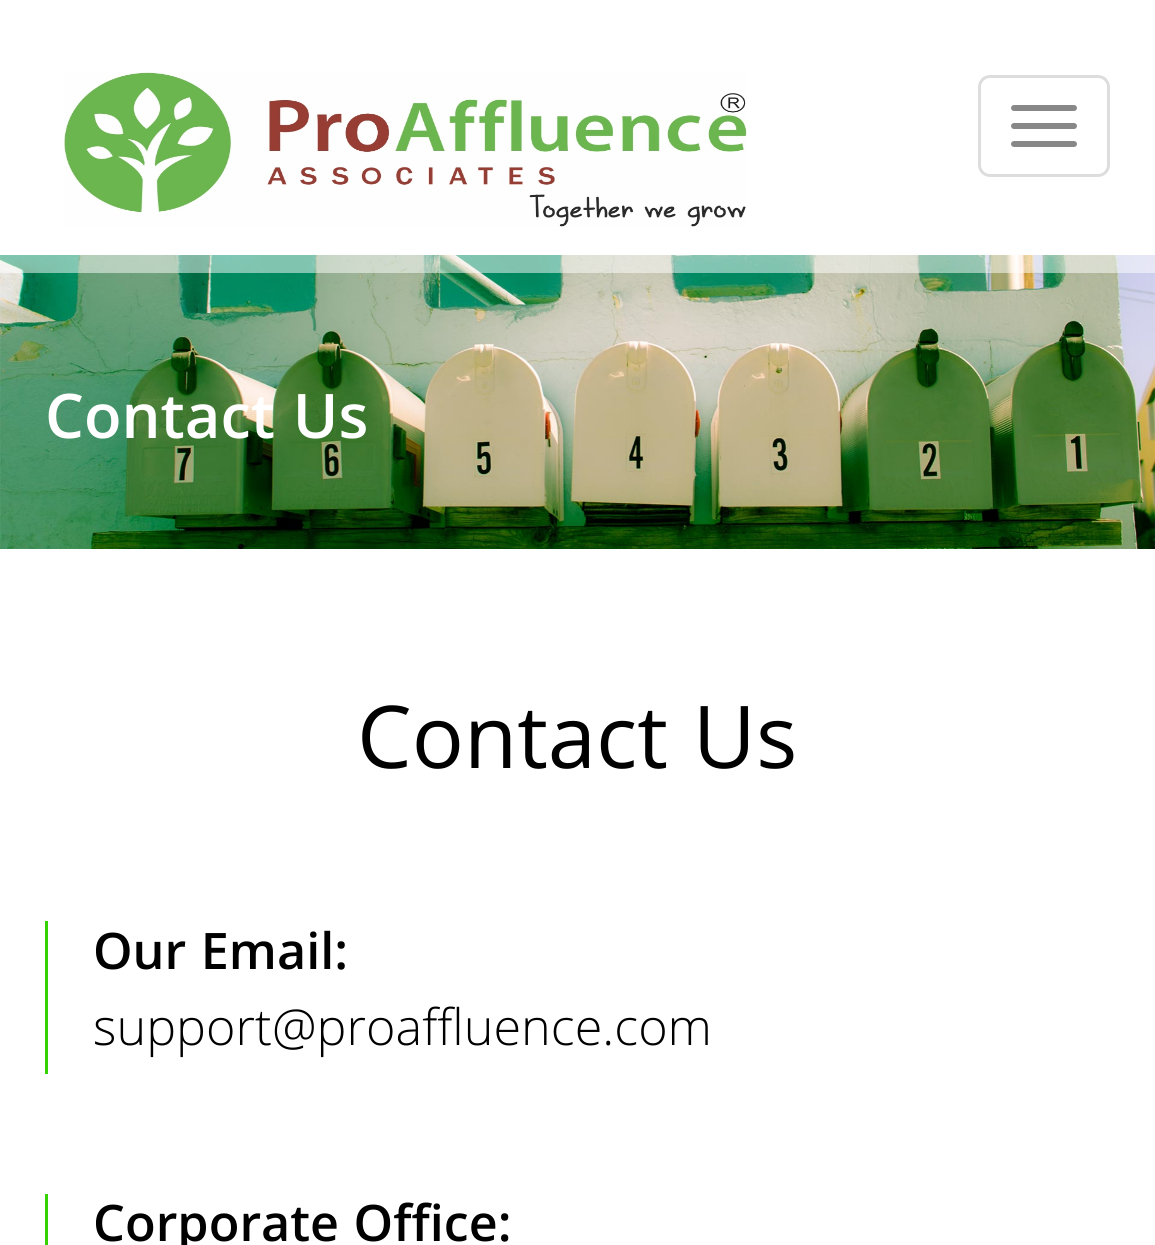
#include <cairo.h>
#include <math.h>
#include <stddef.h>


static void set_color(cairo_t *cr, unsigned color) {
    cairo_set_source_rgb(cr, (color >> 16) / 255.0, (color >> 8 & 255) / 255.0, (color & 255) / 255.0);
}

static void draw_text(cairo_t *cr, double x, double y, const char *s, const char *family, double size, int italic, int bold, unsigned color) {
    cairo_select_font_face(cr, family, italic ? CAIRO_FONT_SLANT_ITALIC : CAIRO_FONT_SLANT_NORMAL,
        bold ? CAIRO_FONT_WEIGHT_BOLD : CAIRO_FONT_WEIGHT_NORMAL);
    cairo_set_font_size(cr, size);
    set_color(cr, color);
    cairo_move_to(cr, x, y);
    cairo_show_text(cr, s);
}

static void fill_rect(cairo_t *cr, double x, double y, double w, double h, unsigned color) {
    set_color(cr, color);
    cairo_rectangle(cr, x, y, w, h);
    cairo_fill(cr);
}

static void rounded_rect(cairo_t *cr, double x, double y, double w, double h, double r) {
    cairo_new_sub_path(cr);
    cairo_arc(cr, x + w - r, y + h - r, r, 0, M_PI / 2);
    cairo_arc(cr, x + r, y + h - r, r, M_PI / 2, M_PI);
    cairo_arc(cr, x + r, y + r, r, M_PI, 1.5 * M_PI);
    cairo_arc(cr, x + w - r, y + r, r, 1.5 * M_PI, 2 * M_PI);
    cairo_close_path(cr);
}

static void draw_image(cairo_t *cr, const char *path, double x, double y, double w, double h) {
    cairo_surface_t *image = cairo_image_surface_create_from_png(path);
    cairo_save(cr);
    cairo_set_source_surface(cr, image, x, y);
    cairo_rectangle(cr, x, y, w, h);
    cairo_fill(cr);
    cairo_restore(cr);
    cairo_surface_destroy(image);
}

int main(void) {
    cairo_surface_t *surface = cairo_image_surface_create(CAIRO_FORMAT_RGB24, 1155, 1245);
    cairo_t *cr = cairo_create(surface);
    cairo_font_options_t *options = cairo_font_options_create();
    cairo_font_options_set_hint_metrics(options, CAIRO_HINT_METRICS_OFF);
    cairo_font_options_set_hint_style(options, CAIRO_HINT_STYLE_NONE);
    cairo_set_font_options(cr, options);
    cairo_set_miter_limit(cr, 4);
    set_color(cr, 0xFFFFFF);
    cairo_paint(cr);
    draw_image(cr, "assets/img1.png", 64, 72, 683, 155);
    rounded_rect(cr, 979.5, 76.5, 129, 99, 10.5);
    set_color(cr, 0xDDDDDD);
    cairo_set_line_width(cr, 3);
    cairo_stroke(cr);
    set_color(cr, 0x888888);
    rounded_rect(cr, 1011, 105, 66, 6, 3);
    cairo_fill(cr);
    rounded_rect(cr, 1011, 123, 66, 6, 3);
    cairo_fill(cr);
    rounded_rect(cr, 1011, 141, 66, 6, 3);
    cairo_fill(cr);
    draw_image(cr, "assets/img2.png", 0, 255, 1155, 294);
    cairo_set_source_rgba(cr, 1, 1, 1, 0.5);
    cairo_rectangle(cr, 0, 255, 1155, 18);
    cairo_fill(cr);
    draw_text(cr, 45, 438, "Contact Us", "Khula SemiBold", 66, 0, 0, 0xFFFFFF);
    draw_text(cr, 357, 768, "Contact Us", "Khula", 93, 0, 0, 0x000000);
    fill_rect(cr, 45, 921, 3, 153, 0x36D100);
    draw_text(cr, 93, 969, "Our Email:", "Khula SemiBold", 54, 0, 0, 0x000000);
    draw_text(cr, 93, 1045, "support@proaffluence.com", "Khula Light", 54, 0, 0, 0x000000);
    fill_rect(cr, 45, 1194, 3, 51, 0x36D100);
    draw_text(cr, 93, 1241, "Corporate Office:", "Khula SemiBold", 54, 0, 0, 0x000000);
    cairo_surface_write_to_png(surface, "output.png");
    cairo_font_options_destroy(options);
    cairo_destroy(cr);
    cairo_surface_destroy(surface);
    return 0;
}
